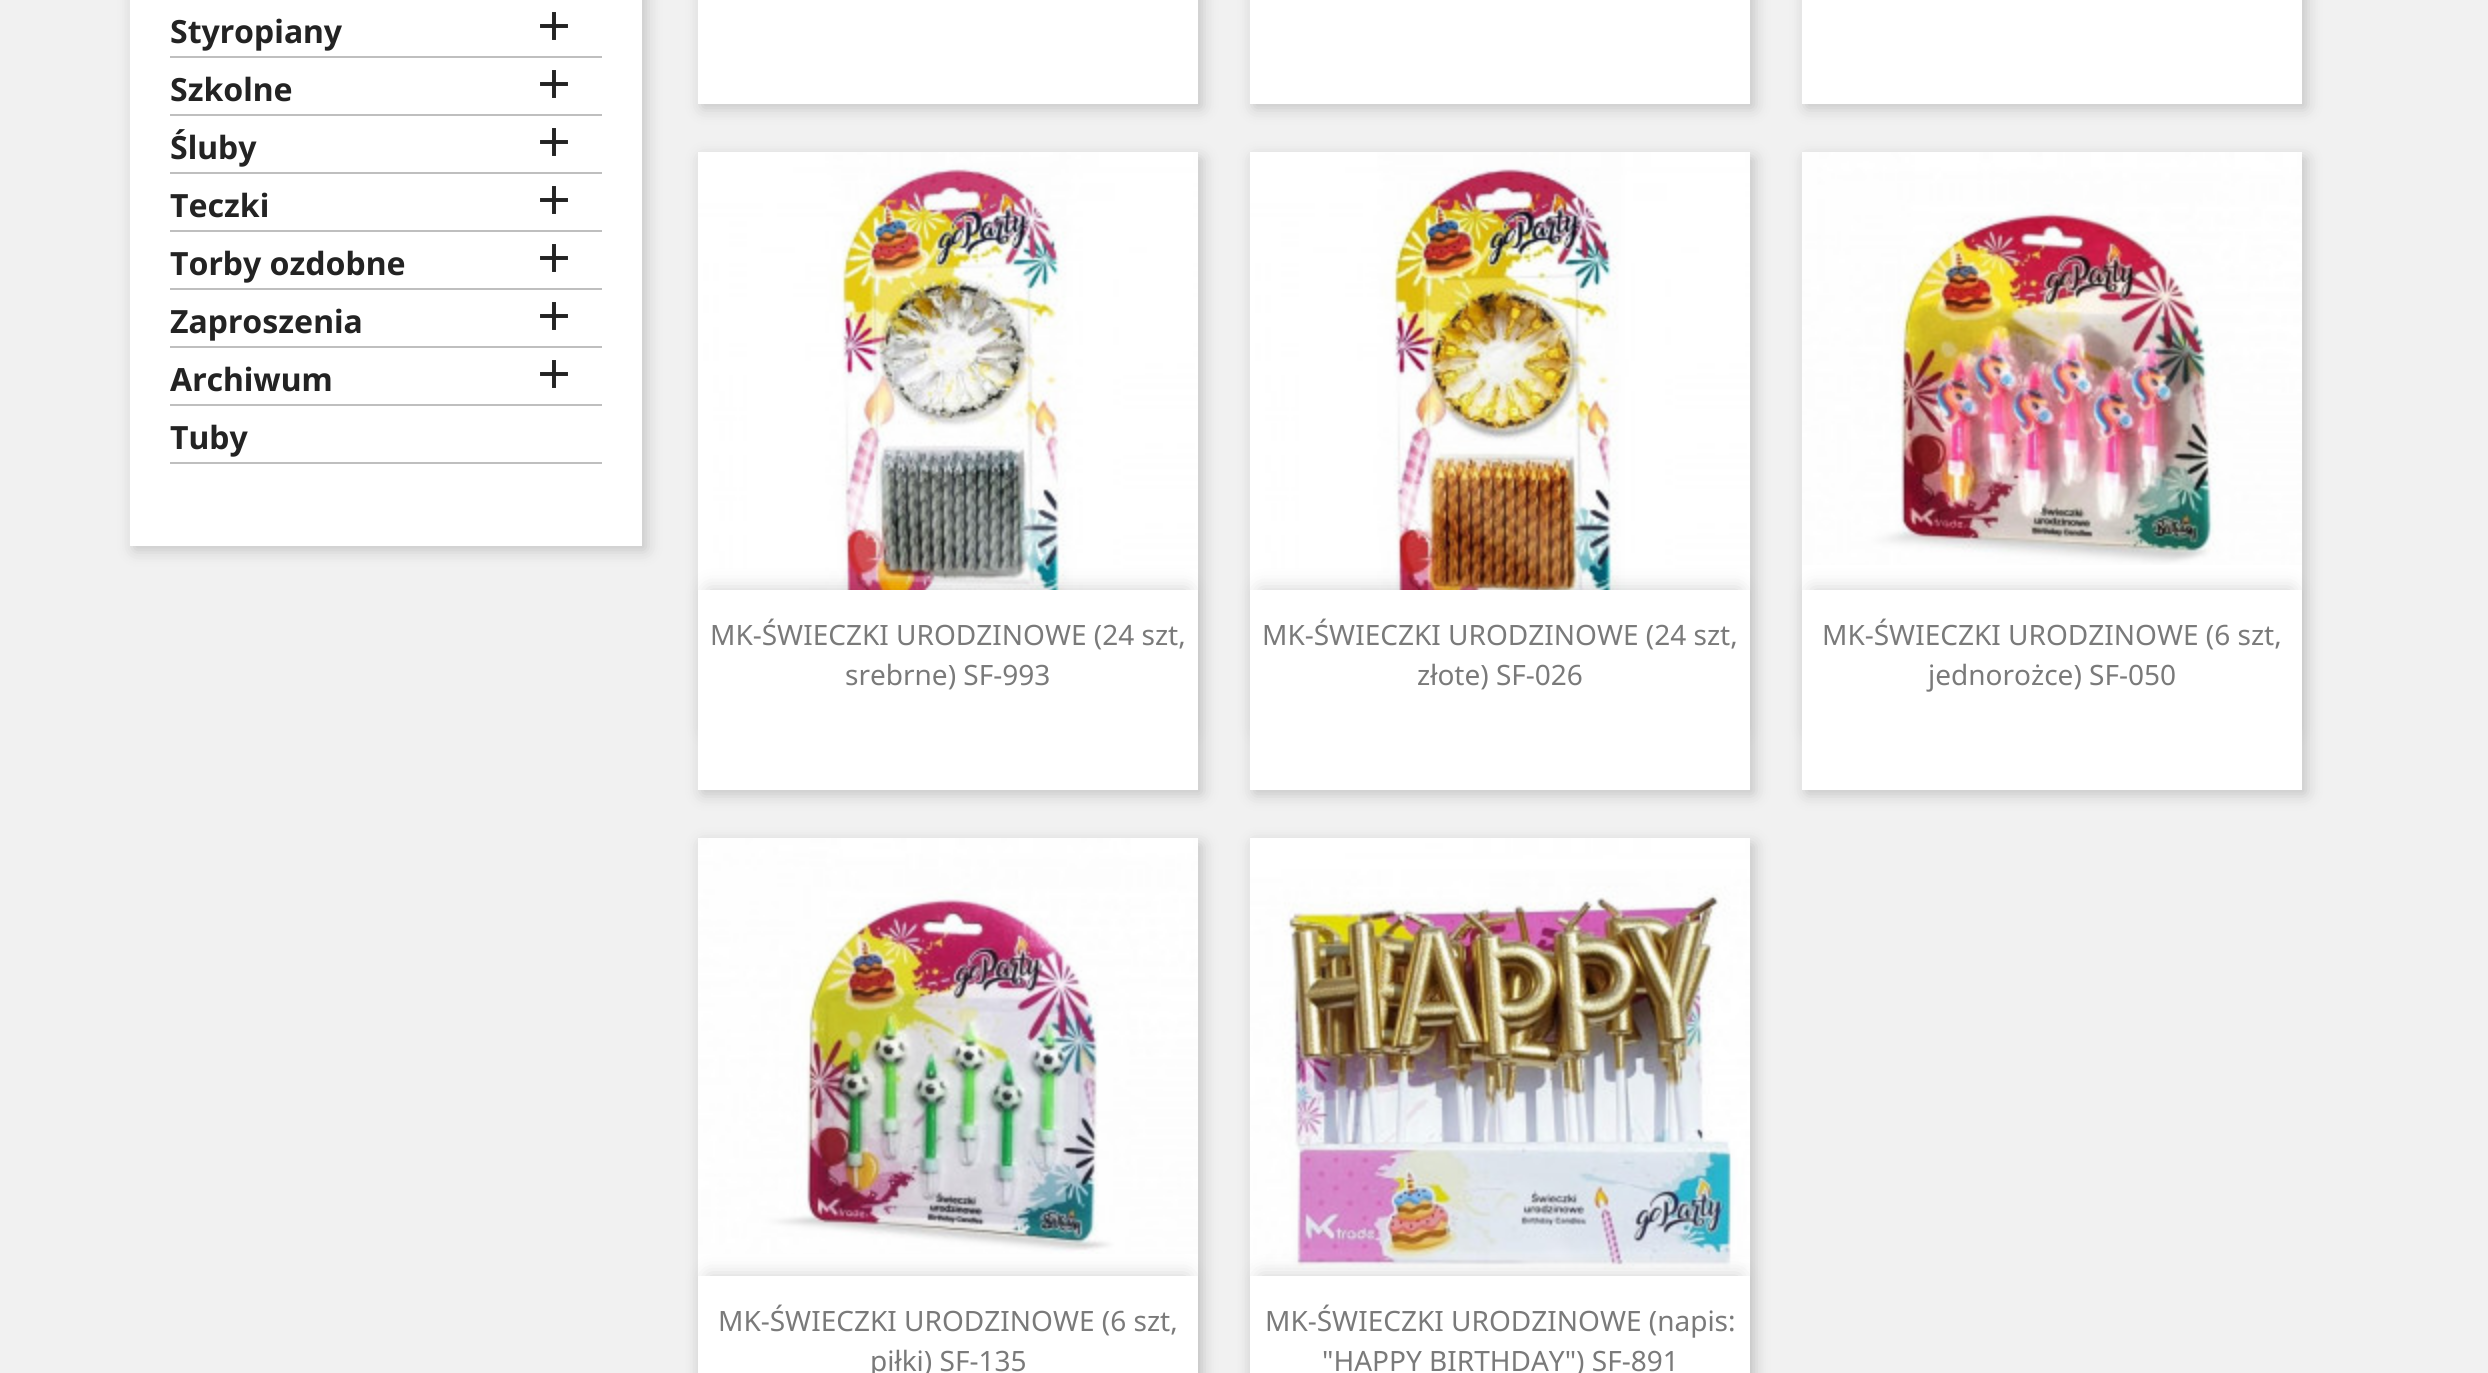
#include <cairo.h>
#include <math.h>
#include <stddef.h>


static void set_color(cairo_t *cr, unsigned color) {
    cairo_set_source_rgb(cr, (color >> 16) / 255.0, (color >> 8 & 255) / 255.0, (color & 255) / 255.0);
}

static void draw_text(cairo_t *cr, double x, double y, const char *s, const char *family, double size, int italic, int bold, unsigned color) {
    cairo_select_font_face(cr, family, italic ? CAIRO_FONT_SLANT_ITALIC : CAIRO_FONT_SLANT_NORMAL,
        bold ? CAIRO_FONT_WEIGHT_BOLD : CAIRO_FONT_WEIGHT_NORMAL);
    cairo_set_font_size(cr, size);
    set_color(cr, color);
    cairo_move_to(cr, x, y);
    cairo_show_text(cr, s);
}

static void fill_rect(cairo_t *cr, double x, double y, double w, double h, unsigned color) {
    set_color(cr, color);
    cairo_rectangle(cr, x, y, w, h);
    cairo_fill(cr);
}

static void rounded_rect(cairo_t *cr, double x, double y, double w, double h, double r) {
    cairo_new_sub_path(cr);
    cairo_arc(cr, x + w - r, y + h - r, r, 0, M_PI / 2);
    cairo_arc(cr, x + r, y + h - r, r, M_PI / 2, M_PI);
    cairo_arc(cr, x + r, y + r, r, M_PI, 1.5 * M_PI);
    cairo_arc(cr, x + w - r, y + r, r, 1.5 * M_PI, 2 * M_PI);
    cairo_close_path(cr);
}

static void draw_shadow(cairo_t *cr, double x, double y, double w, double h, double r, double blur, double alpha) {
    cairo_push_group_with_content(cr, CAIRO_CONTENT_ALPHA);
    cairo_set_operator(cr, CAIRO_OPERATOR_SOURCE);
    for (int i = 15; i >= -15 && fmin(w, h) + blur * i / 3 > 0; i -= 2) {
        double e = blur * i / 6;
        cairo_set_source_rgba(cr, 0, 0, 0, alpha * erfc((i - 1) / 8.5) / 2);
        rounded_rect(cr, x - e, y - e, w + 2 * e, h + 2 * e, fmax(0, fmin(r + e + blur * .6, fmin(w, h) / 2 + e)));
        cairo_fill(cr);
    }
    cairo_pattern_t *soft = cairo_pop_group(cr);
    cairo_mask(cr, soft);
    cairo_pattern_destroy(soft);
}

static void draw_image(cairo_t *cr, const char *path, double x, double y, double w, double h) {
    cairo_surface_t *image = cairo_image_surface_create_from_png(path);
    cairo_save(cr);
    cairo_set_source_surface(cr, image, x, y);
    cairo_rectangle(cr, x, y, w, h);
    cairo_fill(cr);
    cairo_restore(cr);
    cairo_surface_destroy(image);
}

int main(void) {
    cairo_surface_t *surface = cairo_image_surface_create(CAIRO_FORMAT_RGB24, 2488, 1373);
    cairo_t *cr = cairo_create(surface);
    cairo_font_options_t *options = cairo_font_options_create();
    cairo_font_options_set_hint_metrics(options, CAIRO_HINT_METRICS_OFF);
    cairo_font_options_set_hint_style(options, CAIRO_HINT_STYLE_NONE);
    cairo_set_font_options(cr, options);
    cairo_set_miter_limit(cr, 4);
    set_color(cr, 0xF1F1F1);
    cairo_paint(cr);
    set_color(cr, 0x000000);
    draw_shadow(cr, 134, -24, 512, 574, 0, 8, 0.2);
    fill_rect(cr, 130, 0, 512, 546, 0xFFFFFF);
    fill_rect(cr, 170, 56, 432, 2, 0xBFBFBF);
    draw_text(cr, 170, 43, "Styropiany", "Noto Sans", 32, 0, 1, 0x232323);
    draw_image(cr, "assets/img1.png", 540, 12, 28, 28);
    fill_rect(cr, 170, 114, 432, 2, 0xBFBFBF);
    draw_text(cr, 170, 101, "Szkolne", "Noto Sans", 32, 0, 1, 0x232323);
    draw_image(cr, "assets/img1.png", 540, 70, 28, 28);
    fill_rect(cr, 170, 172, 432, 2, 0xBFBFBF);
    draw_text(cr, 170, 159, "Śluby", "Noto Sans", 32, 0, 1, 0x232323);
    draw_image(cr, "assets/img1.png", 540, 128, 28, 28);
    fill_rect(cr, 170, 230, 432, 2, 0xBFBFBF);
    draw_text(cr, 170, 217, "Teczki", "Noto Sans", 32, 0, 1, 0x232323);
    draw_image(cr, "assets/img1.png", 540, 186, 28, 28);
    fill_rect(cr, 170, 288, 432, 2, 0xBFBFBF);
    draw_text(cr, 170, 275, "Torby ozdobne", "Noto Sans", 32, 0, 1, 0x232323);
    draw_image(cr, "assets/img1.png", 540, 244, 28, 28);
    fill_rect(cr, 170, 346, 432, 2, 0xBFBFBF);
    draw_text(cr, 170, 333, "Zaproszenia", "Noto Sans", 32, 0, 1, 0x232323);
    draw_image(cr, "assets/img1.png", 540, 302, 28, 28);
    fill_rect(cr, 170, 404, 432, 2, 0xBFBFBF);
    draw_text(cr, 170, 391, "Archiwum", "Noto Sans", 32, 0, 1, 0x232323);
    draw_image(cr, "assets/img1.png", 540, 360, 28, 28);
    fill_rect(cr, 170, 462, 432, 2, 0xBFBFBF);
    draw_text(cr, 170, 449, "Tuby", "Noto Sans", 32, 0, 1, 0x232323);
    set_color(cr, 0x000000);
    draw_shadow(cr, 702, -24, 500, 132, 0, 8, 0.2);
    fill_rect(cr, 698, 0, 500, 104, 0xFFFFFF);
    set_color(cr, 0x000000);
    draw_shadow(cr, 1254, -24, 500, 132, 0, 8, 0.2);
    fill_rect(cr, 1250, 0, 500, 104, 0xFFFFFF);
    set_color(cr, 0x000000);
    draw_shadow(cr, 1806, -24, 500, 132, 0, 8, 0.2);
    fill_rect(cr, 1802, 0, 500, 104, 0xFFFFFF);
    set_color(cr, 0x000000);
    draw_shadow(cr, 702, 158, 500, 636, 0, 8, 0.2);
    draw_image(cr, "assets/img2.png", 698, 152, 500, 438);
    draw_shadow(cr, 708, 590, 480, 140, 0, 10, 0.2);
    fill_rect(cr, 698, 590, 500, 200, 0xFFFFFF);
    draw_text(cr, 710, 645, "MK-ŚWIECZKI URODZINOWE (24 szt,", "Noto Sans", 28, 0, 0, 0x7A7A7A);
    draw_text(cr, 845, 685, "srebrne) SF-993", "Noto Sans", 28, 0, 0, 0x7A7A7A);
    set_color(cr, 0x000000);
    draw_shadow(cr, 1254, 158, 500, 636, 0, 8, 0.2);
    draw_image(cr, "assets/img3.png", 1250, 152, 500, 438);
    draw_shadow(cr, 1260, 590, 480, 140, 0, 10, 0.2);
    fill_rect(cr, 1250, 590, 500, 200, 0xFFFFFF);
    draw_text(cr, 1262, 645, "MK-ŚWIECZKI URODZINOWE (24 szt,", "Noto Sans", 28, 0, 0, 0x7A7A7A);
    draw_text(cr, 1417, 685, "złote) SF-026", "Noto Sans", 28, 0, 0, 0x7A7A7A);
    set_color(cr, 0x000000);
    draw_shadow(cr, 1806, 158, 500, 636, 0, 8, 0.2);
    fill_rect(cr, 1802, 565, 500, 25, 0xFFFFFF);
    draw_image(cr, "assets/img4.png", 1802, 152, 500, 413);
    set_color(cr, 0x000000);
    draw_shadow(cr, 1812, 590, 480, 140, 0, 10, 0.2);
    fill_rect(cr, 1802, 590, 500, 200, 0xFFFFFF);
    draw_text(cr, 1822, 645, "MK-ŚWIECZKI URODZINOWE (6 szt,", "Noto Sans", 28, 0, 0, 0x7A7A7A);
    draw_text(cr, 1928, 685, "jednorożce) SF-050", "Noto Sans", 28, 0, 0, 0x7A7A7A);
    set_color(cr, 0x000000);
    draw_shadow(cr, 702, 844, 500, 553, 0, 8, 0.2);
    fill_rect(cr, 698, 1254, 500, 22, 0xFFFFFF);
    draw_image(cr, "assets/img5.png", 698, 838, 500, 416);
    set_color(cr, 0x000000);
    draw_shadow(cr, 708, 1276, 480, 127, 0, 10, 0.2);
    fill_rect(cr, 698, 1276, 500, 97, 0xFFFFFF);
    draw_text(cr, 718, 1331, "MK-ŚWIECZKI URODZINOWE (6 szt,", "Noto Sans", 28, 0, 0, 0x7A7A7A);
    draw_text(cr, 870, 1371, "piłki) SF-135", "Noto Sans", 28, 0, 0, 0x7A7A7A);
    set_color(cr, 0x000000);
    draw_shadow(cr, 1254, 844, 500, 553, 0, 8, 0.2);
    fill_rect(cr, 1250, 1270, 500, 6, 0xFFFFFF);
    draw_image(cr, "assets/img6.png", 1250, 838, 500, 432);
    set_color(cr, 0x000000);
    draw_shadow(cr, 1260, 1276, 480, 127, 0, 10, 0.2);
    fill_rect(cr, 1250, 1276, 500, 97, 0xFFFFFF);
    draw_text(cr, 1265, 1331, "MK-ŚWIECZKI URODZINOWE (napis:", "Noto Sans", 28, 0, 0, 0x7A7A7A);
    draw_text(cr, 1322, 1371, "\"HAPPY BIRTHDAY\") SF-891", "Noto Sans", 28, 0, 0, 0x7A7A7A);
    cairo_surface_write_to_png(surface, "output.png");
    cairo_font_options_destroy(options);
    cairo_destroy(cr);
    cairo_surface_destroy(surface);
    return 0;
}
